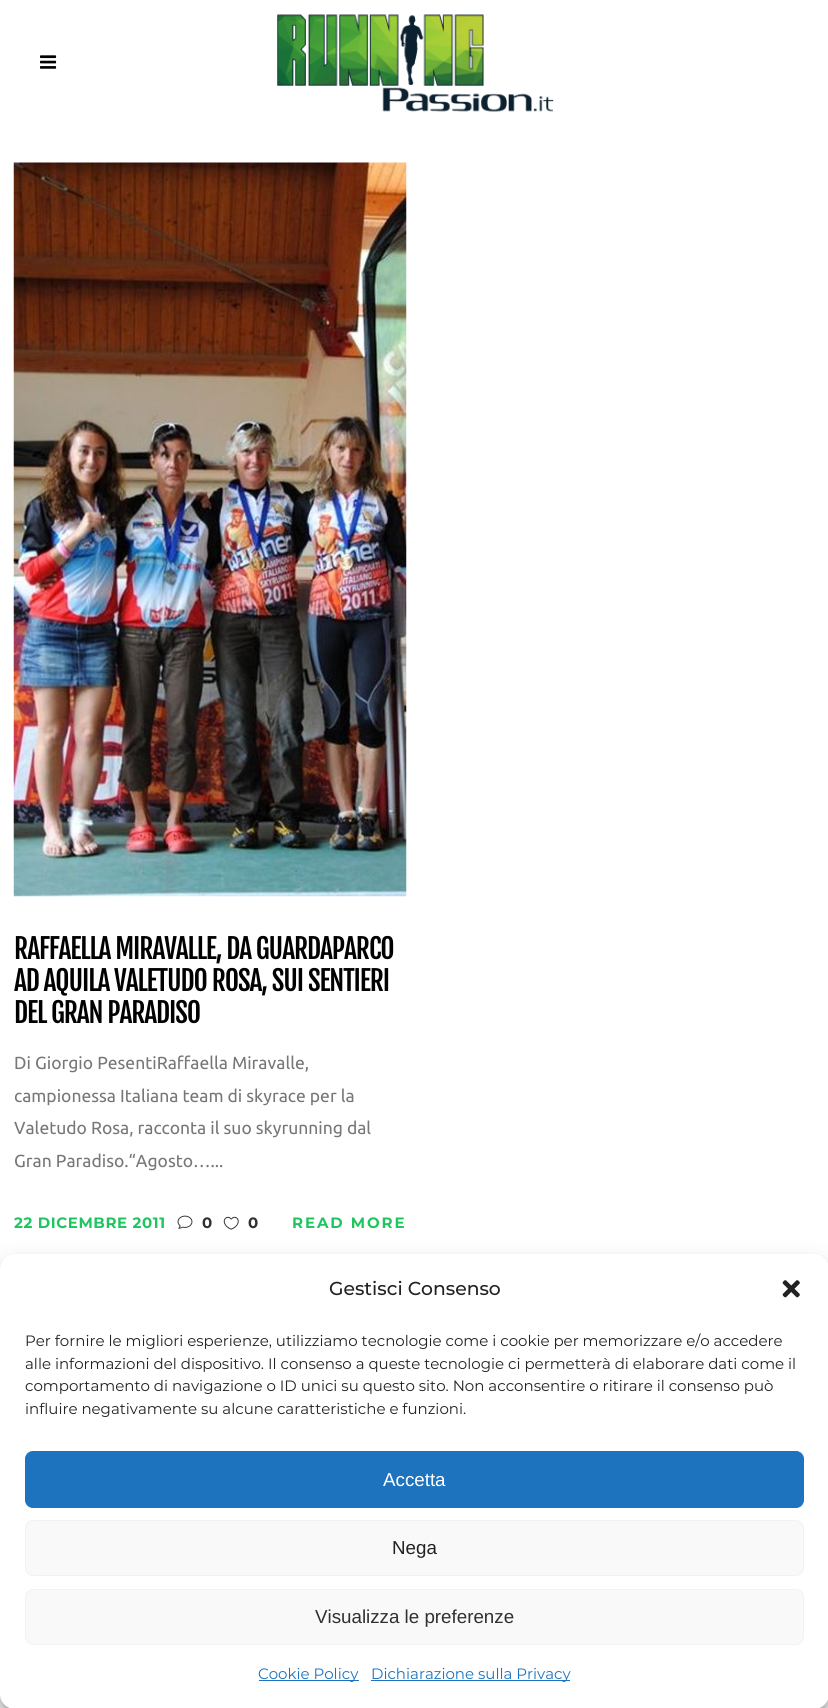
#include <cairo.h>
#include <math.h>
#include <stddef.h>


static void set_color(cairo_t *cr, unsigned color) {
    cairo_set_source_rgb(cr, (color >> 16) / 255.0, (color >> 8 & 255) / 255.0, (color & 255) / 255.0);
}

static void draw_text(cairo_t *cr, double x, double y, const char *s, const char *family, double size, int italic, int bold, unsigned color) {
    cairo_select_font_face(cr, family, italic ? CAIRO_FONT_SLANT_ITALIC : CAIRO_FONT_SLANT_NORMAL,
        bold ? CAIRO_FONT_WEIGHT_BOLD : CAIRO_FONT_WEIGHT_NORMAL);
    cairo_set_font_size(cr, size);
    set_color(cr, color);
    cairo_move_to(cr, x, y);
    cairo_show_text(cr, s);
}

static void draw_spaced(cairo_t *cr, double x, double y, const char *s, double letter, double word) {
    cairo_move_to(cr, x, y);
    while (*s) {
        char ch[5] = {0};
        int n = 0;
        do ch[n++] = *s++; while ((*s & 0xC0) == 0x80);
        cairo_show_text(cr, ch);
        cairo_rel_move_to(cr, letter + word * (*ch == ' '), 0);
    }
}

static void fill_rect(cairo_t *cr, double x, double y, double w, double h, unsigned color) {
    set_color(cr, color);
    cairo_rectangle(cr, x, y, w, h);
    cairo_fill(cr);
}

static void rounded_rect(cairo_t *cr, double x, double y, double w, double h, double r) {
    cairo_new_sub_path(cr);
    cairo_arc(cr, x + w - r, y + h - r, r, 0, M_PI / 2);
    cairo_arc(cr, x + r, y + h - r, r, M_PI / 2, M_PI);
    cairo_arc(cr, x + r, y + r, r, M_PI, 1.5 * M_PI);
    cairo_arc(cr, x + w - r, y + r, r, 1.5 * M_PI, 2 * M_PI);
    cairo_close_path(cr);
}

static void draw_shadow(cairo_t *cr, double x, double y, double w, double h, double r, double blur, double alpha) {
    cairo_push_group_with_content(cr, CAIRO_CONTENT_ALPHA);
    cairo_set_operator(cr, CAIRO_OPERATOR_SOURCE);
    for (int i = 15; i >= -15 && fmin(w, h) + blur * i / 3 > 0; i -= 2) {
        double e = blur * i / 6;
        cairo_set_source_rgba(cr, 0, 0, 0, alpha * erfc((i - 1) / 8.5) / 2);
        rounded_rect(cr, x - e, y - e, w + 2 * e, h + 2 * e, fmax(0, fmin(r + e + blur * .6, fmin(w, h) / 2 + e)));
        cairo_fill(cr);
    }
    cairo_pattern_t *soft = cairo_pop_group(cr);
    cairo_mask(cr, soft);
    cairo_pattern_destroy(soft);
}

static void draw_image(cairo_t *cr, const char *path, double x, double y, double w, double h) {
    cairo_surface_t *image = cairo_image_surface_create_from_png(path);
    cairo_save(cr);
    cairo_set_source_surface(cr, image, x, y);
    cairo_rectangle(cr, x, y, w, h);
    cairo_fill(cr);
    cairo_restore(cr);
    cairo_surface_destroy(image);
}

int main(void) {
    cairo_surface_t *surface = cairo_image_surface_create(CAIRO_FORMAT_RGB24, 828, 1708);
    cairo_t *cr = cairo_create(surface);
    cairo_font_options_t *options = cairo_font_options_create();
    cairo_font_options_set_hint_metrics(options, CAIRO_HINT_METRICS_OFF);
    cairo_font_options_set_hint_style(options, CAIRO_HINT_STYLE_NONE);
    cairo_set_font_options(cr, options);
    cairo_set_miter_limit(cr, 4);
    set_color(cr, 0xFFFFFF);
    cairo_paint(cr);
    draw_image(cr, "assets/img1.png", 40, 55, 17, 14);
    draw_image(cr, "assets/img2.png", 277, 14, 277, 98);
    draw_image(cr, "assets/img3.png", 13, 162, 394, 735);
    cairo_select_font_face(cr, "Fjalla One", CAIRO_FONT_SLANT_NORMAL, CAIRO_FONT_WEIGHT_NORMAL);
    cairo_set_font_size(cr, 27.5);
    set_color(cr, 0x000000);
    draw_spaced(cr, 14, 959, "RAFFAELLA MIRAVALLE, DA GUARDAPARCO", -1.1, 0);
    draw_spaced(cr, 14, 991, "AD AQUILA VALETUDO ROSA, SUI SENTIERI", -1.1, 0);
    draw_spaced(cr, 14, 1023, "DEL GRAN PARADISO", -1.1, 0);
    draw_text(cr, 14, 1069, "Di Giorgio PesentiRaffaella Miravalle,", "Ubuntu", 17.5, 0, 0, 0x777777);
    draw_text(cr, 14, 1102, "campionessa Italiana team di skyrace per la", "Ubuntu", 17.5, 0, 0, 0x777777);
    draw_text(cr, 14, 1134, "Valetudo Rosa, racconta il suo skyrunning dal", "Ubuntu", 17.5, 0, 0, 0x777777);
    draw_text(cr, 14, 1167, "Gran Paradiso.“Agosto…...", "Ubuntu", 17.5, 0, 0, 0x777777);
    cairo_select_font_face(cr, "Montserrat", CAIRO_FONT_SLANT_NORMAL, CAIRO_FONT_WEIGHT_BOLD);
    cairo_set_font_size(cr, 15);
    set_color(cr, 0x1FC65F);
    draw_spaced(cr, 14, 1228, "22 DICEMBRE 2011", 0.6, 0);
    draw_image(cr, "assets/img4.png", 177, 1215, 16, 14);
    set_color(cr, 0x303030);
    draw_spaced(cr, 202, 1228, "0", 0.6, 0);
    draw_image(cr, "assets/img5.png", 223, 1216, 16, 14);
    draw_spaced(cr, 248, 1228, "0", 0.6, 0);
    set_color(cr, 0x1FC65F);
    draw_spaced(cr, 292, 1228, "READ MORE", 1.9, 0);
    set_color(cr, 0x000000);
    draw_shadow(cr, 0, 1261, 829, 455, 15, 4, 0.23);
    draw_shadow(cr, 0, 1266, 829, 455, 15, 12.5, 0.19);
    set_color(cr, 0xFFFFFF);
    rounded_rect(cr, 0, 1254, 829, 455, 15);
    cairo_fill(cr);
    draw_text(cr, 329, 1295, "Gestisci Consenso", "Montserrat Medium", 18.75, 0, 0, 0x222222);
    draw_image(cr, "assets/img6.png", 782, 1280, 18, 18);
    draw_text(cr, 25, 1346, "Per fornire le migliori esperienze, utilizziamo tecnologie come i cookie per memorizzare e/o accedere", "Montserrat", 15, 0, 0, 0x222222);
    draw_text(cr, 25, 1369, "alle informazioni del dispositivo. Il consenso a queste tecnologie ci permetterà di elaborare dati come il", "Montserrat", 15, 0, 0, 0x222222);
    draw_text(cr, 25, 1391, "comportamento di navigazione o ID unici su questo sito. Non acconsentire o ritirare il consenso può", "Montserrat", 15, 0, 0, 0x222222);
    draw_text(cr, 25, 1414, "influire negativamente su alcune caratteristiche e funzioni.", "Montserrat", 15, 0, 0, 0x222222);
    set_color(cr, 0x1E73BE);
    rounded_rect(cr, 25.5, 1451.5, 778, 56, 7.5);
    cairo_fill_preserve(cr);
    cairo_set_line_width(cr, 1);
    cairo_stroke(cr);
    draw_text(cr, 383, 1486, "Accetta", "Liberation Sans", 18.75, 0, 0, 0xFFFFFF);
    set_color(cr, 0xF9F9F9);
    rounded_rect(cr, 25.5, 1520.5, 778, 55, 7.5);
    cairo_fill_preserve(cr);
    set_color(cr, 0xF2F2F2);
    cairo_stroke(cr);
    draw_text(cr, 392, 1554, "Nega", "Liberation Sans", 18.75, 0, 0, 0x222222);
    set_color(cr, 0xF9F9F9);
    rounded_rect(cr, 25.5, 1589.5, 778, 55, 7.5);
    cairo_fill_preserve(cr);
    set_color(cr, 0xF2F2F2);
    cairo_stroke(cr);
    draw_text(cr, 315, 1623, "Visualizza le preferenze", "Liberation Sans", 18.75, 0, 0, 0x303030);
    fill_rect(cr, 259, 1680, 100, 1, 0x1E73BE);
    draw_text(cr, 258, 1679, "Cookie Policy", "Montserrat", 15, 0, 0, 0x1E73BE);
    fill_rect(cr, 371, 1680, 199, 1, 0x1E73BE);
    draw_text(cr, 371, 1679, "Dichiarazione sulla Privacy", "Montserrat", 15, 0, 0, 0x1E73BE);
    cairo_surface_write_to_png(surface, "output.png");
    cairo_font_options_destroy(options);
    cairo_destroy(cr);
    cairo_surface_destroy(surface);
    return 0;
}
